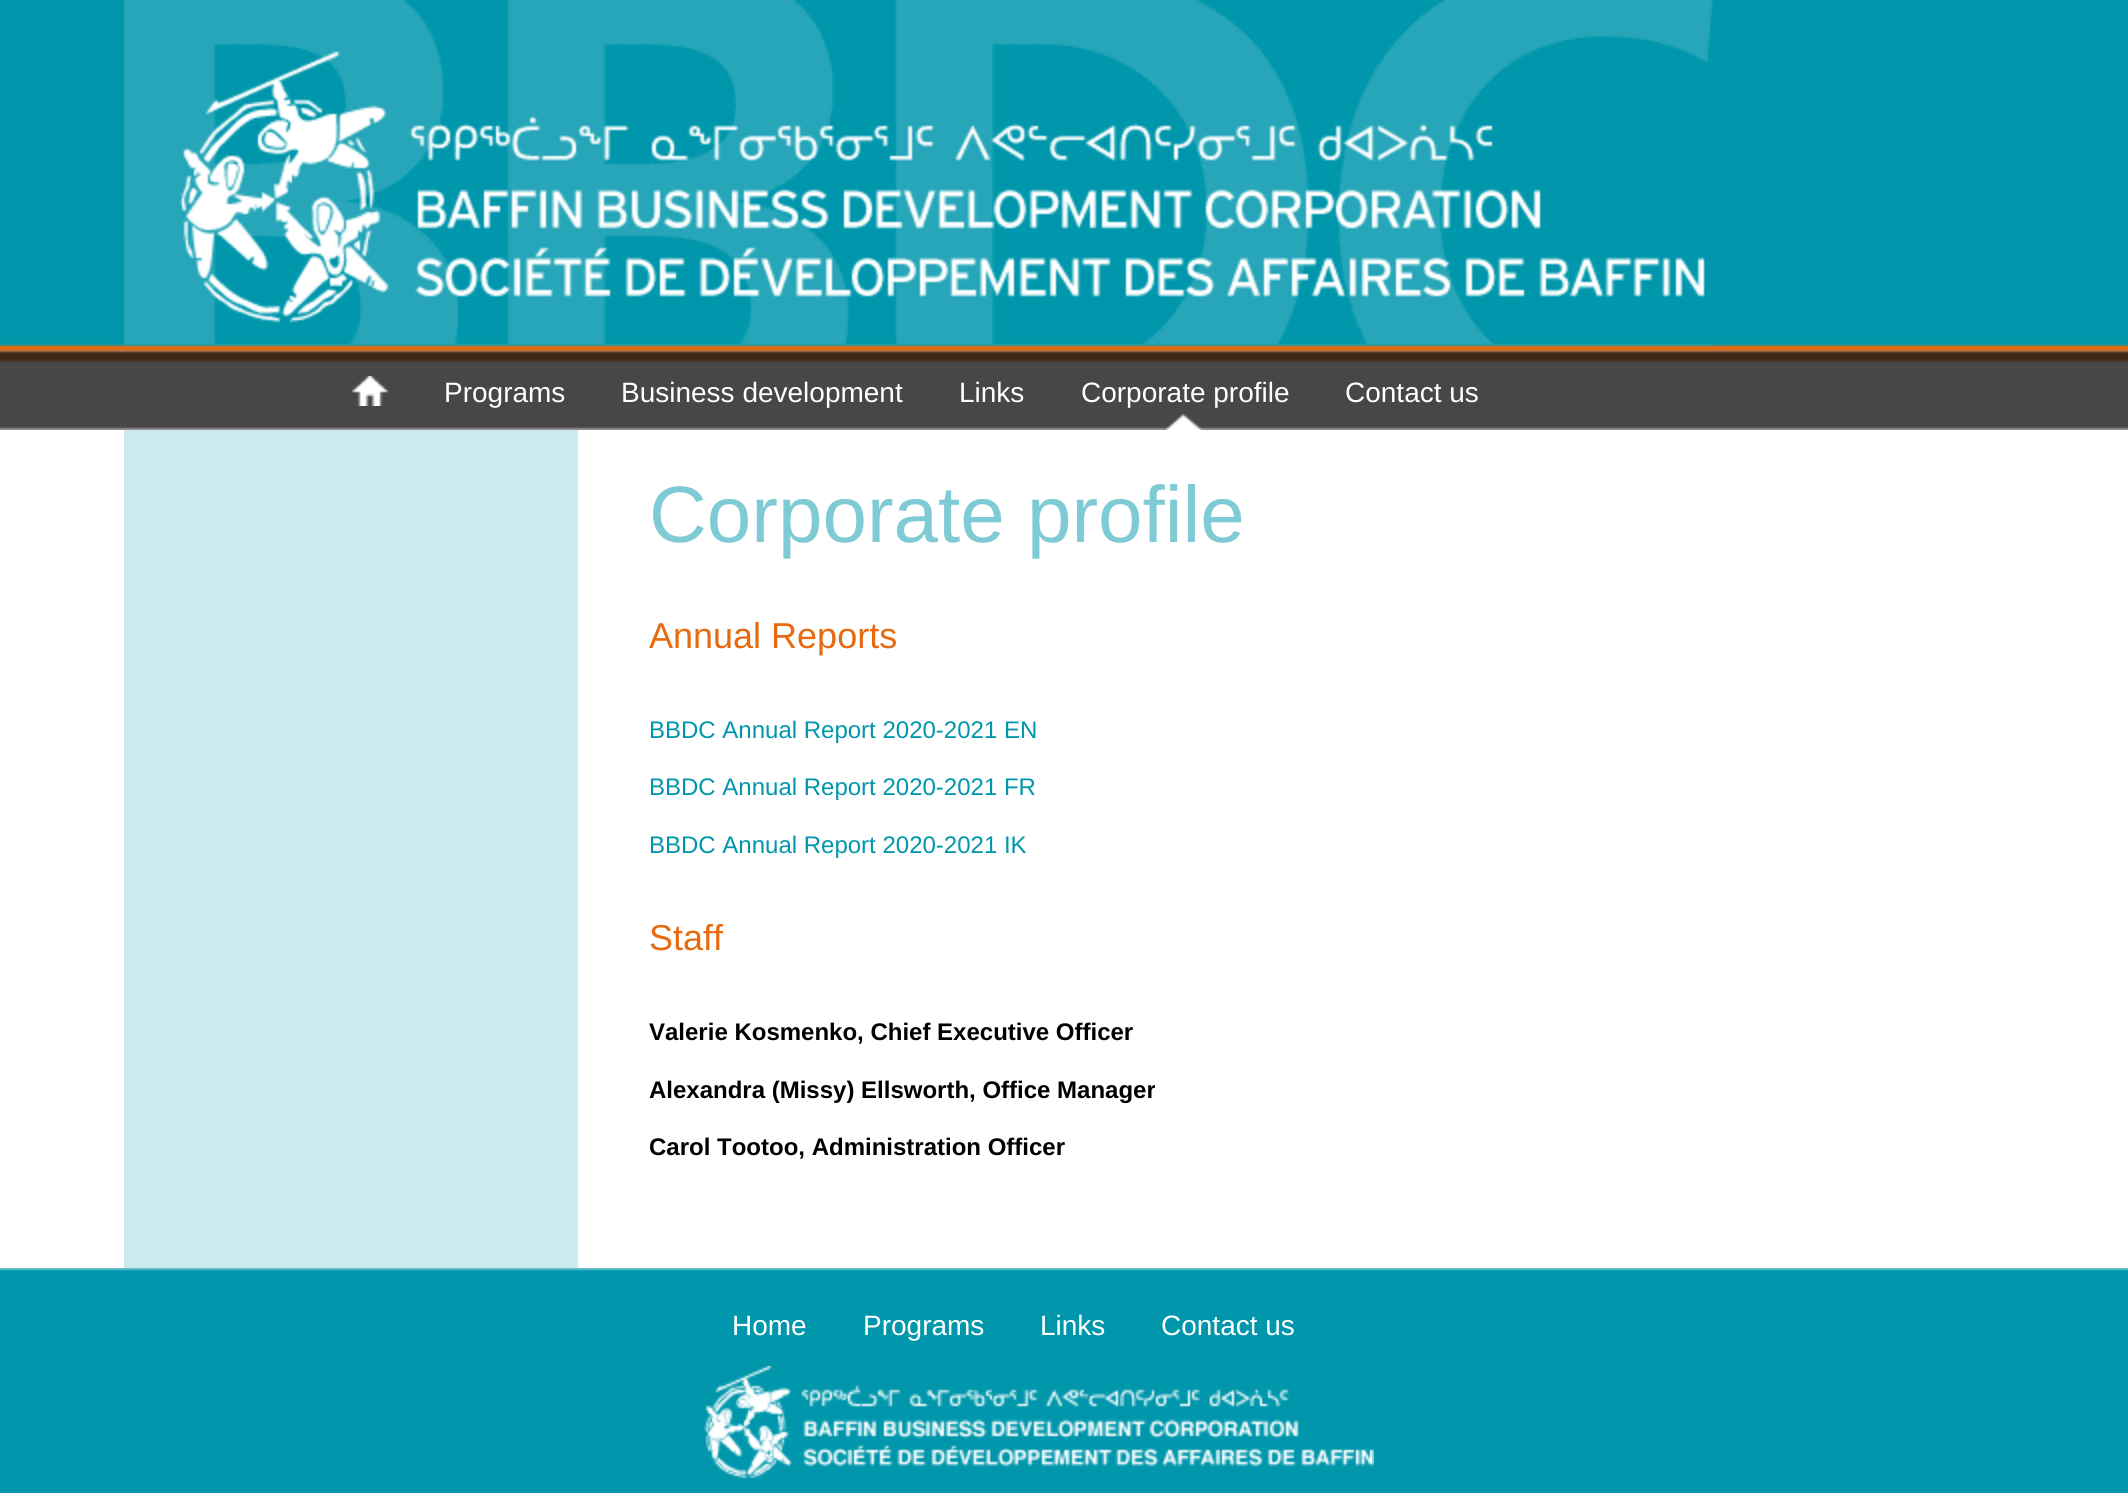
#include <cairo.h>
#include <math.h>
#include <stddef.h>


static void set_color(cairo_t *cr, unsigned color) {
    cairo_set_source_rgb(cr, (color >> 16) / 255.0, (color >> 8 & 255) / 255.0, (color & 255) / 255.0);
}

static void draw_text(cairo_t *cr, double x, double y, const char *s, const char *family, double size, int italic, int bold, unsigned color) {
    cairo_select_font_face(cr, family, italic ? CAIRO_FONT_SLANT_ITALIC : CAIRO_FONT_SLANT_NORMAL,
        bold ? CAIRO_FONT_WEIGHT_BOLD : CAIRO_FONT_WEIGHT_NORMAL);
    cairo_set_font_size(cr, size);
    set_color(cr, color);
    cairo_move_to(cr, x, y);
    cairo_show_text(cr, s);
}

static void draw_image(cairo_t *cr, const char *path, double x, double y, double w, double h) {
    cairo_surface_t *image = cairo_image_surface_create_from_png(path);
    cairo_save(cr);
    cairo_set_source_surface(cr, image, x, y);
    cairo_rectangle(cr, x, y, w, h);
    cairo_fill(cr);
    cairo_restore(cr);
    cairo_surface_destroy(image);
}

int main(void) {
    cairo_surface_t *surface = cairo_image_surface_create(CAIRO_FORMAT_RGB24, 2128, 1493);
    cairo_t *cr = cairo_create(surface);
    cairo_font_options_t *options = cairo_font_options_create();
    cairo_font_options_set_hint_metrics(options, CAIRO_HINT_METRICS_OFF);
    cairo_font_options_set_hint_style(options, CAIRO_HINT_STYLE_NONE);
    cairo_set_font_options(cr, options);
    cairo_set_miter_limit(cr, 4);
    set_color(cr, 0xFFFFFF);
    cairo_paint(cr);
    draw_image(cr, "assets/img1.png", 0, 0, 2128, 430);
    draw_image(cr, "assets/img2.png", 124, 0, 1590, 346);
    draw_image(cr, "assets/img3.png", 352, 376, 36, 30);
    draw_text(cr, 444, 402, "Programs", "Liberation Sans", 28, 0, 0, 0xFFFFFF);
    draw_text(cr, 621, 402, "Business development", "Liberation Sans", 28, 0, 0, 0xFFFFFF);
    draw_text(cr, 959, 402, "Links", "Liberation Sans", 28, 0, 0, 0xFFFFFF);
    draw_text(cr, 1081, 402, "Corporate profile", "Liberation Sans", 28, 0, 0, 0xFFFFFF);
    draw_image(cr, "assets/img4.png", 1166, 414, 36, 16);
    draw_text(cr, 1345, 402, "Contact us", "Liberation Sans", 28, 0, 0, 0xFFFFFF);
    draw_image(cr, "assets/img5.png", 124, 430, 455, 838);
    draw_text(cr, 649, 542, "Corporate profile", "Liberation Sans", 80, 0, 0, 0x7FCBD5);
    draw_text(cr, 649, 648, "Annual Reports", "Liberation Sans", 36, 0, 0, 0xE86A10);
    draw_text(cr, 649, 738, "BBDC Annual Report 2020-2021 EN", "Liberation Sans", 24, 0, 0, 0x0097AC);
    draw_text(cr, 649, 795, "BBDC Annual Report 2020-2021 FR", "Liberation Sans", 24, 0, 0, 0x0097AC);
    draw_text(cr, 649, 853, "BBDC Annual Report 2020-2021 IK", "Liberation Sans", 24, 0, 0, 0x0097AC);
    draw_text(cr, 649, 950, "Staff", "Liberation Sans", 36, 0, 0, 0xE86A10);
    draw_text(cr, 649, 1040, "Valerie Kosmenko, Chief Executive Officer", "Liberation Sans", 24, 0, 1, 0x000000);
    draw_text(cr, 649, 1098, "Alexandra (Missy) Ellsworth, Office Manager", "Liberation Sans", 24, 0, 1, 0x000000);
    draw_text(cr, 649, 1155, "Carol Tootoo, Administration Officer", "Liberation Sans", 24, 0, 1, 0x000000);
    draw_image(cr, "assets/img6.png", 0, 1268, 2128, 225);
    draw_text(cr, 732, 1335, "Home", "Liberation Sans", 28, 0, 0, 0xFFFFFF);
    draw_text(cr, 863, 1335, "Programs", "Liberation Sans", 28, 0, 0, 0xFFFFFF);
    draw_text(cr, 1040, 1335, "Links", "Liberation Sans", 28, 0, 0, 0xFFFFFF);
    draw_text(cr, 1161, 1335, "Contact us", "Liberation Sans", 28, 0, 0, 0xFFFFFF);
    draw_image(cr, "assets/img7.png", 704, 1366, 670, 112);
    cairo_surface_write_to_png(surface, "output.png");
    cairo_font_options_destroy(options);
    cairo_destroy(cr);
    cairo_surface_destroy(surface);
    return 0;
}
